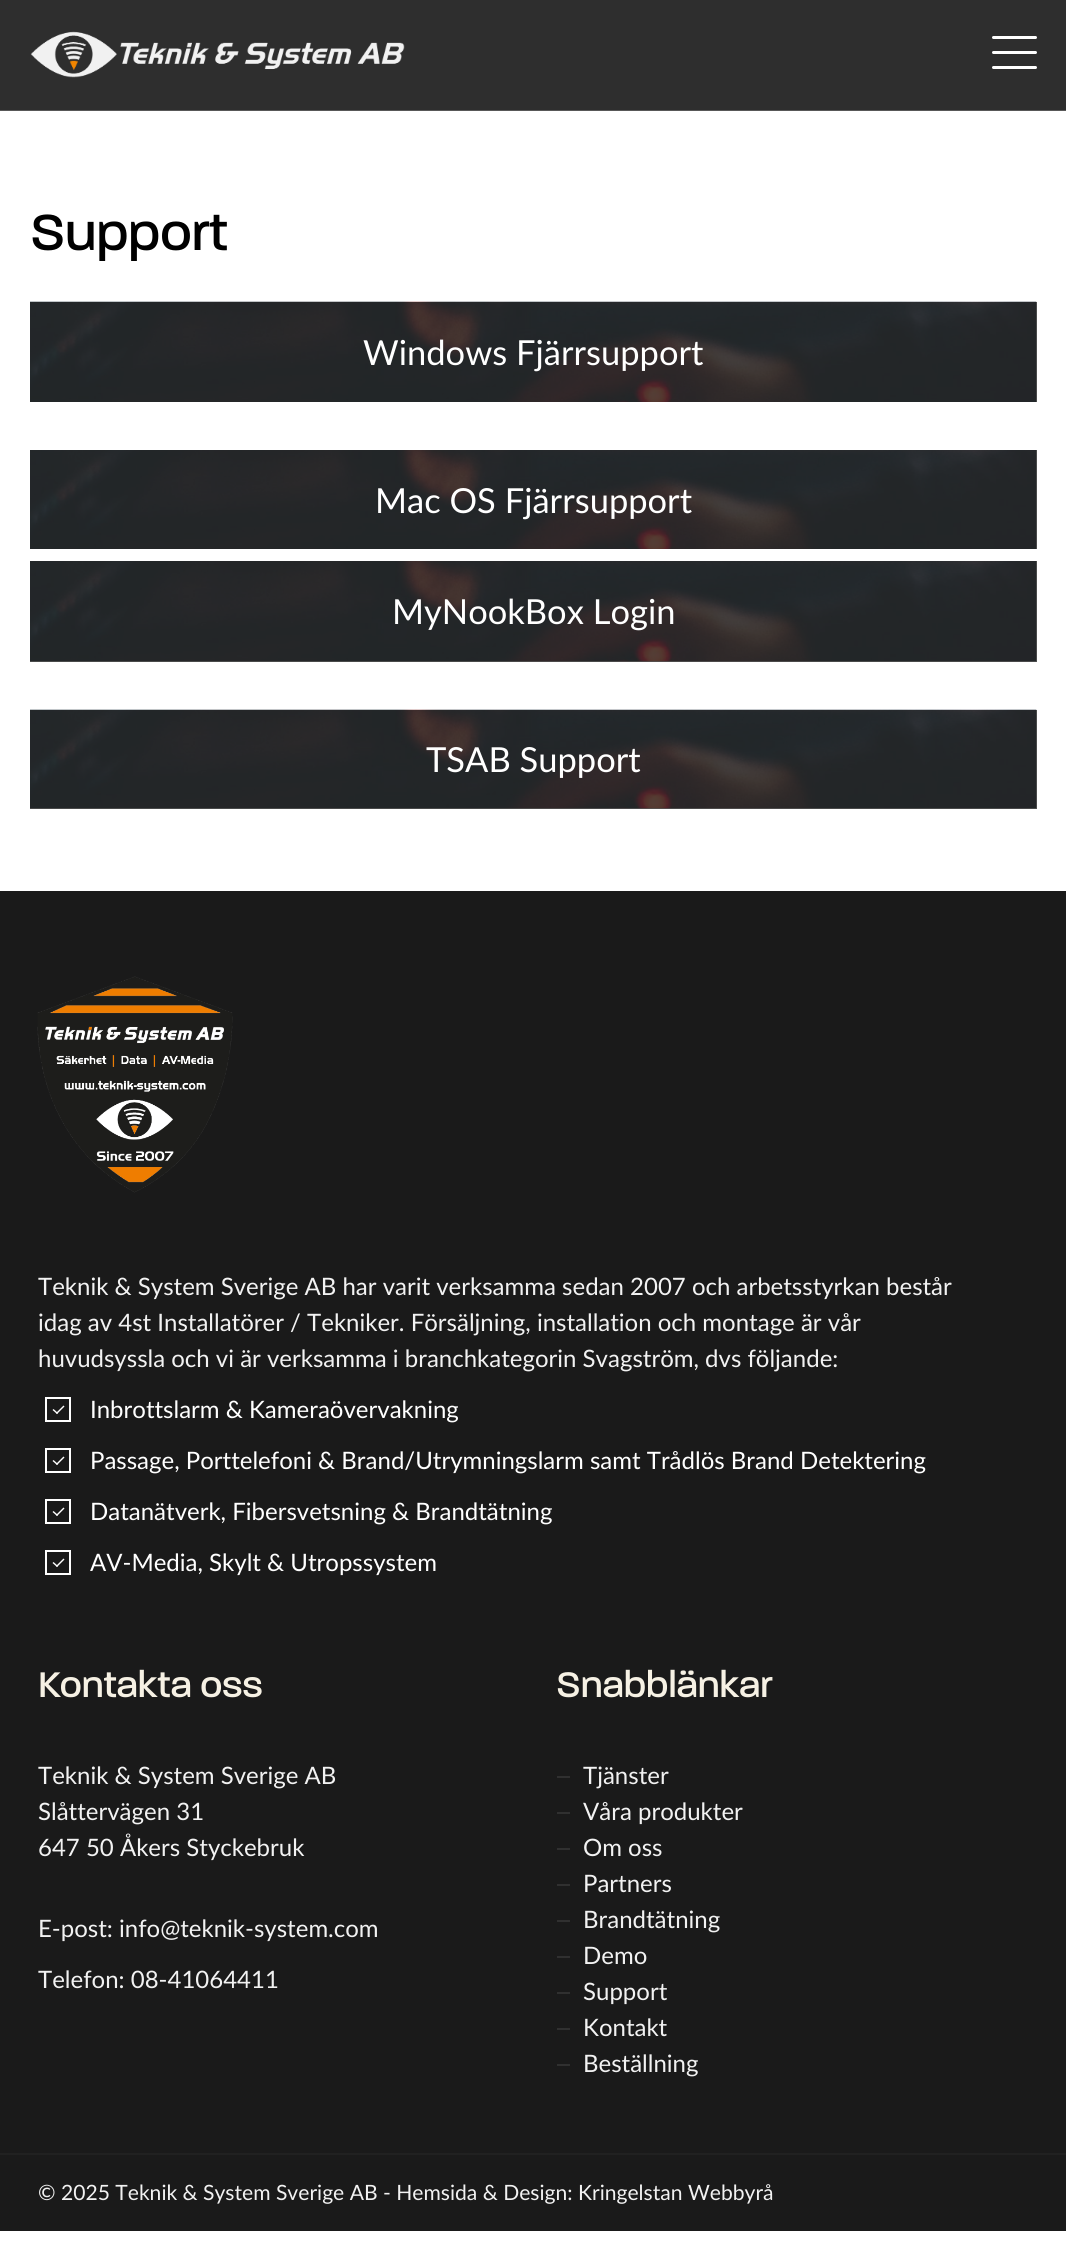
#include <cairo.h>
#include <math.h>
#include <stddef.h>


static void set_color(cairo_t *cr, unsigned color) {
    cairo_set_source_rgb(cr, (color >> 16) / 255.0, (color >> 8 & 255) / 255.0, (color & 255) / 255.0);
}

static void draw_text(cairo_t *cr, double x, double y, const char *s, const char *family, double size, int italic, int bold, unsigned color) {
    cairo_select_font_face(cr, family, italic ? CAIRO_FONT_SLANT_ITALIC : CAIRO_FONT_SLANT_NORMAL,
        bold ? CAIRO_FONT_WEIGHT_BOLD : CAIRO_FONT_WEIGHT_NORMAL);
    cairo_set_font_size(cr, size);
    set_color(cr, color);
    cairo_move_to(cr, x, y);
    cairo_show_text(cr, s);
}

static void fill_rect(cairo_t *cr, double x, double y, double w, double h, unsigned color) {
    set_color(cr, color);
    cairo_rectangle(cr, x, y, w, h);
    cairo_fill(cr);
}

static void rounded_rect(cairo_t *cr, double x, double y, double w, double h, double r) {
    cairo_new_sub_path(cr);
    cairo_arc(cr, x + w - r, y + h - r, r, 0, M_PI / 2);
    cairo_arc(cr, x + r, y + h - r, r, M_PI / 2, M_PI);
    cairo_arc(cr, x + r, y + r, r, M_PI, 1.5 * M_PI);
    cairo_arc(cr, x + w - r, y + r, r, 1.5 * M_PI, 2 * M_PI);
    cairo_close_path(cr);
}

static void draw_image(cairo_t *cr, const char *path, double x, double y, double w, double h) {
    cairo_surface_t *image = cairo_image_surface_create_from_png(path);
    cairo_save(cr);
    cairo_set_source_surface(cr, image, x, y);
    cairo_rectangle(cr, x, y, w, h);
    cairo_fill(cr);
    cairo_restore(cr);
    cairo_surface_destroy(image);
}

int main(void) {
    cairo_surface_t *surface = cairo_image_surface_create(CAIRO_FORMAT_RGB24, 1066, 2255);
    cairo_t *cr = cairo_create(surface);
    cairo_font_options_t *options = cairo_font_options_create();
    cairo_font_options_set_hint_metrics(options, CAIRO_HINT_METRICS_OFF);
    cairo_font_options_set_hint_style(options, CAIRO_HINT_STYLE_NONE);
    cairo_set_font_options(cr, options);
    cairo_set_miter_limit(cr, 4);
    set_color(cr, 0xFFFFFF);
    cairo_paint(cr);
    fill_rect(cr, 30, 710, 1007, 99, 0x555555);
    fill_rect(cr, 30, 561, 1007, 101, 0x555555);
    fill_rect(cr, 1036, 450, 1, 99, 0x555555);
    fill_rect(cr, 1036, 302, 1, 100, 0x555555);
    fill_rect(cr, 0, 0, 1066, 110, 0x2E2E2E);
    fill_rect(cr, 0, 110, 1066, 1, 0x585858);
    draw_image(cr, "assets/img1.png", 30, 31, 375, 47);
    set_color(cr, 0xFFFFFF);
    rounded_rect(cr, 992, 66, 45, 3, 1.5);
    cairo_fill(cr);
    rounded_rect(cr, 992, 36, 45, 3, 1.5);
    cairo_fill(cr);
    rounded_rect(cr, 992, 51, 45, 3, 1.5);
    cairo_fill(cr);
    draw_text(cr, 30, 250, "Support", "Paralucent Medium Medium", 55, 0, 0, 0x000000);
    draw_image(cr, "assets/img2.png", 30, 301, 1007, 101);
    draw_text(cr, 363, 365, "Windows Fjärrsupport", "Lato", 34.5, 0, 0, 0xFFFFFF);
    draw_image(cr, "assets/img3.png", 30, 450, 1007, 99);
    draw_text(cr, 375, 513, "Mac OS Fjärrsupport", "Lato", 34.5, 0, 0, 0xFFFFFF);
    draw_image(cr, "assets/img4.png", 30, 561, 1007, 101);
    draw_text(cr, 392, 624, "MyNookBox Login", "Lato", 34.5, 0, 0, 0xFFFFFF);
    draw_image(cr, "assets/img5.png", 30, 709, 1007, 100);
    draw_text(cr, 426, 772, "TSAB Support", "Lato", 34.5, 0, 0, 0xFFFFFF);
    fill_rect(cr, 0, 891, 1066, 1340, 0x1A1A1A);
    draw_image(cr, "assets/img6.png", 37, 976, 196, 217);
    draw_text(cr, 38, 1295, "Teknik & System Sverige AB har varit verksamma sedan 2007 och arbetsstyrkan består", "Lato", 24, 0, 0, 0xF2F2F2);
    draw_text(cr, 38, 1331, "idag av 4st Installatörer / Tekniker. Försäljning, installation och montage är vår", "Lato", 24, 0, 0, 0xF2F2F2);
    draw_text(cr, 38, 1367, "huvudsyssla och vi är verksamma i branchkategorin Svagström, dvs följande:", "Lato", 24, 0, 0, 0xF2F2F2);
    cairo_rectangle(cr, 46, 1398, 24, 23);
    set_color(cr, 0xFFFFFF);
    cairo_stroke(cr);
    draw_text(cr, 90, 1418, "Inbrottslarm & Kameraövervakning", "Lato", 24, 0, 0, 0xFFFFFF);
    cairo_new_path(cr);
    cairo_move_to(cr, 63.5, 1405.5);
    cairo_line_to(cr, 64.5, 1406.5);
    cairo_line_to(cr, 57, 1414);
    cairo_line_to(cr, 56, 1413);
    cairo_close_path(cr);
    cairo_fill(cr);
    cairo_new_path(cr);
    cairo_move_to(cr, 53.5, 1409);
    cairo_line_to(cr, 58, 1413);
    cairo_line_to(cr, 57, 1414);
    cairo_line_to(cr, 52.5, 1410);
    cairo_close_path(cr);
    cairo_fill(cr);
    cairo_rectangle(cr, 46, 1449, 24, 23);
    cairo_stroke(cr);
    draw_text(cr, 90, 1469, "Passage, Porttelefoni & Brand/Utrymningslarm samt Trådlös Brand Detektering", "Lato", 24, 0, 0, 0xFFFFFF);
    cairo_new_path(cr);
    cairo_move_to(cr, 63.5, 1456.5);
    cairo_line_to(cr, 64.5, 1457.5);
    cairo_line_to(cr, 57, 1465);
    cairo_line_to(cr, 56, 1464);
    cairo_close_path(cr);
    cairo_fill(cr);
    cairo_new_path(cr);
    cairo_move_to(cr, 53.5, 1460);
    cairo_line_to(cr, 58, 1464);
    cairo_line_to(cr, 57, 1465);
    cairo_line_to(cr, 52.5, 1461);
    cairo_close_path(cr);
    cairo_fill(cr);
    cairo_rectangle(cr, 46, 1500, 24, 23);
    cairo_stroke(cr);
    draw_text(cr, 90, 1520, "Datanätverk, Fibersvetsning & Brandtätning", "Lato", 24, 0, 0, 0xFFFFFF);
    cairo_new_path(cr);
    cairo_move_to(cr, 63.5, 1507.5);
    cairo_line_to(cr, 64.5, 1508.5);
    cairo_line_to(cr, 57, 1516);
    cairo_line_to(cr, 56, 1515);
    cairo_close_path(cr);
    cairo_fill(cr);
    cairo_new_path(cr);
    cairo_move_to(cr, 53.5, 1511);
    cairo_line_to(cr, 58, 1515);
    cairo_line_to(cr, 57, 1516);
    cairo_line_to(cr, 52.5, 1512);
    cairo_close_path(cr);
    cairo_fill(cr);
    cairo_rectangle(cr, 46, 1551, 24, 23);
    cairo_stroke(cr);
    draw_text(cr, 90, 1571, "AV-Media, Skylt & Utropssystem", "Lato", 24, 0, 0, 0xFFFFFF);
    cairo_new_path(cr);
    cairo_move_to(cr, 63.5, 1558.5);
    cairo_line_to(cr, 64.5, 1559.5);
    cairo_line_to(cr, 57, 1567);
    cairo_line_to(cr, 56, 1566);
    cairo_close_path(cr);
    cairo_fill(cr);
    cairo_new_path(cr);
    cairo_move_to(cr, 53.5, 1562);
    cairo_line_to(cr, 58, 1566);
    cairo_line_to(cr, 57, 1567);
    cairo_line_to(cr, 52.5, 1563);
    cairo_close_path(cr);
    cairo_fill(cr);
    draw_text(cr, 38, 1697, "Kontakta oss", "Paralucent Medium Medium", 38.5, 0, 0, 0xF6F1E4);
    draw_text(cr, 38, 1784, "Teknik & System Sverige AB", "Lato", 24, 0, 0, 0xF2F2F2);
    draw_text(cr, 38, 1820, "Slåttervägen 31", "Lato", 24, 0, 0, 0xF2F2F2);
    draw_text(cr, 38, 1856, "647 50 Åkers Styckebruk", "Lato", 24, 0, 0, 0xF2F2F2);
    draw_text(cr, 38, 1937, "E-post: info@teknik-system.com", "Lato", 24, 0, 0, 0xF2F2F2);
    draw_text(cr, 38, 1988, "Telefon: 08-41064411", "Lato", 24, 0, 0, 0xF2F2F2);
    draw_text(cr, 556, 1697, "Snabblänkar", "Paralucent Medium Medium", 38.5, 0, 0, 0xF6F1E4);
    fill_rect(cr, 557, 1776, 13, 2, 0x303030);
    draw_text(cr, 583, 1784, "Tjänster", "Lato", 24, 0, 0, 0xF2F2F2);
    fill_rect(cr, 557, 1812, 13, 2, 0x303030);
    draw_text(cr, 583, 1820, "Våra produkter", "Lato", 24, 0, 0, 0xF2F2F2);
    fill_rect(cr, 557, 1848, 13, 2, 0x303030);
    draw_text(cr, 583, 1856, "Om oss", "Lato", 24, 0, 0, 0xF2F2F2);
    fill_rect(cr, 557, 1884, 13, 2, 0x303030);
    draw_text(cr, 583, 1892, "Partners", "Lato", 24, 0, 0, 0xF2F2F2);
    fill_rect(cr, 557, 1920, 13, 2, 0x303030);
    draw_text(cr, 583, 1928, "Brandtätning", "Lato", 24, 0, 0, 0xF2F2F2);
    fill_rect(cr, 557, 1956, 13, 2, 0x303030);
    draw_text(cr, 583, 1964, "Demo", "Lato", 24, 0, 0, 0xF2F2F2);
    fill_rect(cr, 557, 1992, 13, 2, 0x303030);
    draw_text(cr, 583, 2000, "Support", "Lato", 24, 0, 0, 0xF2F2F2);
    fill_rect(cr, 557, 2028, 13, 2, 0x303030);
    draw_text(cr, 583, 2036, "Kontakt", "Lato", 24, 0, 0, 0xF2F2F2);
    fill_rect(cr, 557, 2064, 13, 2, 0x303030);
    draw_text(cr, 583, 2072, "Beställning", "Lato", 24, 0, 0, 0xF2F2F2);
    fill_rect(cr, 0, 2153, 1066, 2, 0x212121);
    draw_text(cr, 38, 2200, "© 2025 Teknik & System Sverige AB - Hemsida & Design: Kringelstan Webbyrå", "Lato", 21.1, 0, 0, 0xF2F2F2);
    cairo_surface_write_to_png(surface, "output.png");
    cairo_font_options_destroy(options);
    cairo_destroy(cr);
    cairo_surface_destroy(surface);
    return 0;
}
